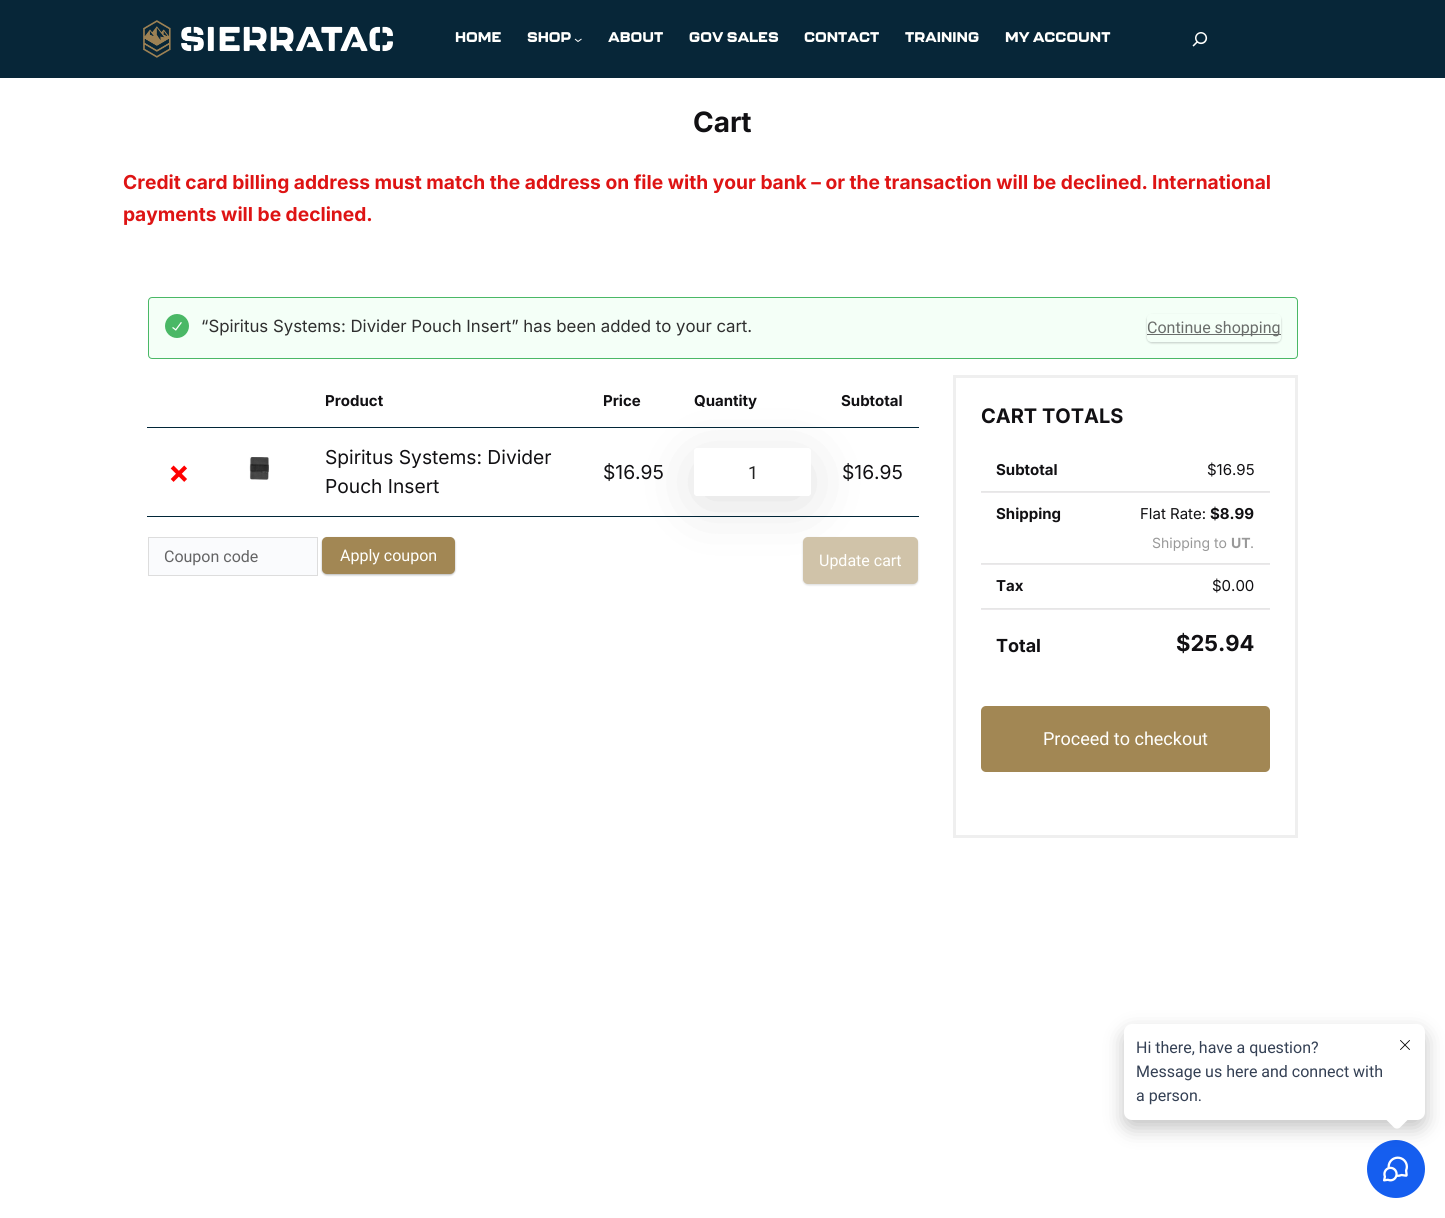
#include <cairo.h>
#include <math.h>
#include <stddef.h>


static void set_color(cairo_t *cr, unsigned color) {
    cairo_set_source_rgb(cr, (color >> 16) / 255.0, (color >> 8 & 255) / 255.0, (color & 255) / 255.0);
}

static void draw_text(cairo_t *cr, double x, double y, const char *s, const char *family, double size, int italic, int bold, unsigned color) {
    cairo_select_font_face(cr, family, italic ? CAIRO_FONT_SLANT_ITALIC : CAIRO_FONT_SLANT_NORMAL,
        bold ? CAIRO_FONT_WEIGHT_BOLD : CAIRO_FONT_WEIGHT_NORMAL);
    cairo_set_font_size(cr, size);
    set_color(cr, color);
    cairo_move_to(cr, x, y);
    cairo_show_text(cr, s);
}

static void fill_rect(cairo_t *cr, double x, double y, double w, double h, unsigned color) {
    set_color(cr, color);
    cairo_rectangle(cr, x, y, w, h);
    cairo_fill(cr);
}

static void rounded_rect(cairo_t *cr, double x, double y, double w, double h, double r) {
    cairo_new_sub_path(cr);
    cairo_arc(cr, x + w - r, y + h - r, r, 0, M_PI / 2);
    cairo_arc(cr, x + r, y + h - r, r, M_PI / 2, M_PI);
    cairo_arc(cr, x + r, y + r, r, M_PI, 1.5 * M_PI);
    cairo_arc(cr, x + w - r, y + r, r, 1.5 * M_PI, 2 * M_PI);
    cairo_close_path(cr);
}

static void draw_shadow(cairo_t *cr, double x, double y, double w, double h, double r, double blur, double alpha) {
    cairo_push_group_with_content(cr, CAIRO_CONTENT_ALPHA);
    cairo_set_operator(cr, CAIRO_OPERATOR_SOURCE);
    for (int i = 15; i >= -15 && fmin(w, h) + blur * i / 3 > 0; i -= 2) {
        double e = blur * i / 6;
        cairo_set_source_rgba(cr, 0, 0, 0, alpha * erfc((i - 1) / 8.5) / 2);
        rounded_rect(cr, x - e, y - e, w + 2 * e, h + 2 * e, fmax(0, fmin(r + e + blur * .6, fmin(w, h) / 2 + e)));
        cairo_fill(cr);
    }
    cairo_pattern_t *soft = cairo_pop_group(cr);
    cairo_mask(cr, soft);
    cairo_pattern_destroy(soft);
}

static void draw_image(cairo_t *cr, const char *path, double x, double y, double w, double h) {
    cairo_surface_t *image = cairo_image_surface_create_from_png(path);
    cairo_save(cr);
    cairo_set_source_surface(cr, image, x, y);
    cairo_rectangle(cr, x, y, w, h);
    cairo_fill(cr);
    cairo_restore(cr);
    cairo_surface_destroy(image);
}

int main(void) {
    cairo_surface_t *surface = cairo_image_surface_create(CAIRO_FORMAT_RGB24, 1445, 1218);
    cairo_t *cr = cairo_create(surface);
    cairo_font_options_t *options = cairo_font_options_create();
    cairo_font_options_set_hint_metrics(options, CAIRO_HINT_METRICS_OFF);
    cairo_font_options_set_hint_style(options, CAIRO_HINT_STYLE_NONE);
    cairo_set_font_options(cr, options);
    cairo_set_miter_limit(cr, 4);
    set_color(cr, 0xFFFFFF);
    cairo_paint(cr);
    fill_rect(cr, 0, 0, 1445, 78, 0x072638);
    draw_image(cr, "assets/img1.png", 143, 20, 250, 38);
    draw_text(cr, 455, 42, "HOME", "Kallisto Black", 14, 0, 0, 0xFFFFFD);
    draw_text(cr, 527, 42, "SHOP", "Kallisto Black", 14, 0, 0, 0xFFFFFD);
    cairo_new_path(cr);
    cairo_move_to(cr, 575, 39);
    cairo_line_to(cr, 578, 41.5);
    cairo_line_to(cr, 581.5, 39);
    set_color(cr, 0xFFFFFE);
    cairo_set_line_width(cr, 1);
    cairo_stroke(cr);
    draw_text(cr, 608, 42, "ABOUT", "Kallisto Black", 14, 0, 0, 0xFFFFFD);
    draw_text(cr, 689, 42, "GOV SALES", "Kallisto Black", 14, 0, 0, 0xFFFFFD);
    draw_text(cr, 804, 42, "CONTACT", "Kallisto Black", 14, 0, 0, 0xFFFFFD);
    draw_text(cr, 905, 42, "TRAINING", "Kallisto Black", 14, 0, 0, 0xFFFFFD);
    draw_text(cr, 1005, 42, "MY ACCOUNT", "Kallisto Black", 14, 0, 0, 0xFFFFFD);
    draw_image(cr, "assets/img2.png", 1192, 32, 16, 15);
    draw_text(cr, 693, 132, "Cart", "Inter", 28, 0, 1, 0x111013);
    draw_text(cr, 123, 189, "Credit card billing address must match the address on file with your bank – or the transaction will be declined.", "Inter", 19.2, 0, 1, 0xDE1414);
    draw_text(cr, 1152, 189, "International", "Inter", 19.2, 0, 1, 0xDE1414);
    draw_text(cr, 123, 221, "payments will be declined.", "Inter", 19.2, 0, 1, 0xDE1414);
    set_color(cr, 0xF4FFF7);
    rounded_rect(cr, 148.5, 297.5, 1149, 61, 3.5);
    cairo_fill_preserve(cr);
    set_color(cr, 0x4AB866);
    cairo_stroke(cr);
    cairo_arc(cr, 177, 326, 12, 0, 2 * M_PI);
    cairo_fill(cr);
    draw_image(cr, "assets/img3.png", 172, 322, 10, 9);
    draw_text(cr, 201, 332, "“Spiritus Systems: Divider Pouch Insert” has been added to your cart.", "Inter", 16.8, 0, 0, 0x2F2F2F);
    cairo_save(cr);
    cairo_set_fill_rule(cr, CAIRO_FILL_RULE_EVEN_ODD);
    cairo_new_path(cr);
    cairo_move_to(cr, 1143, 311);
    cairo_line_to(cr, 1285, 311);
    cairo_line_to(cr, 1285, 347);
    cairo_line_to(cr, 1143, 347);
    cairo_close_path(cr);
    cairo_move_to(cr, 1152, 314);
    cairo_line_to(cr, 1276, 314);
    cairo_curve_to(cr, 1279, 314, 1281, 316, 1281, 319);
    cairo_line_to(cr, 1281, 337);
    cairo_curve_to(cr, 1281, 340, 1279, 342, 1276, 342);
    cairo_line_to(cr, 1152, 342);
    cairo_curve_to(cr, 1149, 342, 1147, 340, 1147, 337);
    cairo_line_to(cr, 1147, 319);
    cairo_curve_to(cr, 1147, 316, 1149, 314, 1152, 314);
    cairo_close_path(cr);
    cairo_clip(cr);
    set_color(cr, 0x494D4A);
    draw_shadow(cr, 1147, 315, 134, 28, 5, 1, 0.08);
    set_color(cr, 0x737979);
    draw_shadow(cr, 1147, 315, 134, 28, 5, 1, 0.3);
    cairo_restore(cr);
    fill_rect(cr, 1147, 334, 134, 1, 0x6A6D6B);
    draw_text(cr, 1147, 333, "Continue shopping", "Roboto", 16, 0, 0, 0x6A6D6B);
    draw_text(cr, 325, 406, "Product", "Inter", 15, 0, 1, 0x111013);
    draw_text(cr, 603, 406, "Price", "Inter", 15, 0, 1, 0x111013);
    draw_text(cr, 694, 406, "Quantity", "Inter", 15, 0, 1, 0x111013);
    fill_rect(cr, 147, 427, 772, 1, 0x012638);
    draw_text(cr, 841, 406, "Subtotal", "Inter", 15, 0, 1, 0x111013);
    draw_text(cr, 168, 483, "×", "Inter", 32, 0, 1, 0xFF0000);
    draw_image(cr, "assets/img4.png", 249, 457, 20, 23);
    draw_text(cr, 325, 464, "Spiritus Systems: Divider", "Inter", 19.2, 0, 0, 0x111013);
    draw_text(cr, 325, 493, "Pouch Insert", "Inter", 19.2, 0, 0, 0x111013);
    draw_text(cr, 603, 479, "$16.95", "Inter", 19.2, 0, 0, 0x111013);
    fill_rect(cr, 147, 516, 772, 1, 0x012638);
    cairo_save(cr);
    cairo_set_fill_rule(cr, CAIRO_FILL_RULE_EVEN_ODD);
    cairo_new_path(cr);
    cairo_move_to(cr, 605, 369);
    cairo_line_to(cr, 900, 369);
    cairo_line_to(cr, 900, 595);
    cairo_line_to(cr, 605, 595);
    cairo_close_path(cr);
    cairo_move_to(cr, 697, 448);
    cairo_line_to(cr, 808, 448);
    cairo_curve_to(cr, 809.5, 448, 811, 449.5, 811, 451);
    cairo_line_to(cr, 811, 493);
    cairo_curve_to(cr, 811, 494.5, 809.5, 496, 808, 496);
    cairo_line_to(cr, 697, 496);
    cairo_curve_to(cr, 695.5, 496, 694, 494.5, 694, 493);
    cairo_line_to(cr, 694, 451);
    cairo_curve_to(cr, 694, 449.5, 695.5, 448, 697, 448);
    cairo_close_path(cr);
    cairo_clip(cr);
    set_color(cr, 0x000000);
    draw_shadow(cr, 704, 468, 97, 28, 0, 32.5, 0.15);
    cairo_restore(cr);
    draw_text(cr, 748, 479, "1", "Roboto", 18, 0, 0, 0x222222);
    draw_text(cr, 842, 479, "$16.95", "Inter", 19.2, 0, 0, 0x111013);
    set_color(cr, 0xFAFBFD);
    cairo_rectangle(cr, 148.5, 537.5, 169, 38);
    cairo_fill_preserve(cr);
    set_color(cr, 0xDDDDDD);
    cairo_stroke(cr);
    draw_text(cr, 164, 562, "Coupon code", "Roboto", 16, 0, 0, 0x646465);
    set_color(cr, 0x000000);
    draw_shadow(cr, 322, 538, 133, 37, 5, 1, 0.08);
    set_color(cr, 0x3C4043);
    draw_shadow(cr, 322, 538, 133, 37, 5, 1, 0.3);
    set_color(cr, 0xA28754);
    rounded_rect(cr, 322, 537, 133, 37, 5);
    cairo_fill(cr);
    draw_text(cr, 340, 561, "Apply coupon", "Roboto", 16, 0, 0, 0xFFFFFD);
    set_color(cr, 0x7F7F7F);
    draw_shadow(cr, 803, 538, 115, 47, 5, 1, 0.08);
    set_color(cr, 0x9D9FA1);
    draw_shadow(cr, 803, 538, 115, 47, 5, 1, 0.3);
    set_color(cr, 0xD0C3A9);
    rounded_rect(cr, 803, 537, 115, 47, 5);
    cairo_fill(cr);
    draw_text(cr, 819, 566, "Update cart", "Roboto", 16, 0, 0, 0xFFFFFD);
    cairo_rectangle(cr, 954.5, 376.5, 342, 460);
    set_color(cr, 0xEFEFEF);
    cairo_set_line_width(cr, 3);
    cairo_stroke(cr);
    draw_text(cr, 981, 423, "CART TOTALS", "Inter", 20, 0, 1, 0x111013);
    fill_rect(cr, 981, 491, 289, 1, 0xE6E6E6);
    draw_text(cr, 996, 475, "Subtotal", "Inter", 15, 0, 1, 0x111013);
    draw_text(cr, 1207, 475, "$16.95", "Inter", 15, 0, 0, 0x111013);
    fill_rect(cr, 981, 492, 289, 1, 0xEBE9EB);
    fill_rect(cr, 981, 563, 289, 1, 0xE6E6E6);
    draw_text(cr, 996, 519, "Shipping", "Inter", 15, 0, 1, 0x111013);
    draw_text(cr, 1140, 519, "Flat Rate:", "Inter", 15, 0, 0, 0x111013);
    draw_text(cr, 1210, 519, "$8.99", "Inter", 15, 0, 1, 0x111013);
    draw_text(cr, 1152, 548, "Shipping to", "Inter", 14, 0, 0, 0x999999);
    draw_text(cr, 1231, 548, "UT", "Inter", 14, 0, 1, 0x999999);
    draw_text(cr, 1250, 548, ".", "Inter", 14, 0, 0, 0x999999);
    fill_rect(cr, 981, 564, 289, 1, 0xEBE9EB);
    fill_rect(cr, 981, 608, 289, 1, 0xE6E6E6);
    draw_text(cr, 996, 591, "Tax", "Inter", 15, 0, 1, 0x111013);
    draw_text(cr, 1212, 591, "$0.00", "Inter", 15, 0, 0, 0x111013);
    fill_rect(cr, 981, 609, 289, 1, 0xEBE9EB);
    draw_text(cr, 996, 652, "Total", "Inter", 18, 0, 1, 0x111013);
    draw_text(cr, 1176, 651, "$25.94", "Inter", 22, 0, 1, 0x111013);
    set_color(cr, 0xA28754);
    rounded_rect(cr, 981, 706, 289, 66, 5);
    cairo_fill(cr);
    draw_text(cr, 1043, 745, "Proceed to checkout", "Roboto", 18, 0, 0, 0xFFFFFD);
    set_color(cr, 0x155EEF);
    cairo_new_path(cr);
    cairo_arc(cr, 1396, 1169, 29, 0, 2 * M_PI);
    cairo_fill(cr);
    draw_image(cr, "assets/img6.png", 1383, 1156, 25, 26);
    set_color(cr, 0x000000);
    draw_shadow(cr, 1124, 1032, 301, 96, 8, 10, 0.24);
    set_color(cr, 0xFFFFFF);
    rounded_rect(cr, 1124, 1024, 301, 96, 8);
    cairo_fill(cr);
    draw_text(cr, 1136, 1053, "Hi there, have a question?", "Roboto", 16, 0, 0, 0x344054);
    draw_text(cr, 1136, 1077, "Message us here and connect with", "Roboto", 16, 0, 0, 0x344054);
    draw_text(cr, 1136, 1101, "a person.", "Roboto", 16, 0, 0, 0x344054);
    set_color(cr, 0xFFFFFF);
    cairo_new_path(cr);
    cairo_move_to(cr, 1400, 1104.5);
    cairo_line_to(cr, 1408.5, 1113);
    cairo_curve_to(cr, 1410, 1114.5, 1410, 1117.5, 1408.5, 1119);
    cairo_line_to(cr, 1400, 1127.5);
    cairo_curve_to(cr, 1398.5, 1129, 1395.5, 1129, 1394, 1127.5);
    cairo_line_to(cr, 1385.5, 1119);
    cairo_curve_to(cr, 1384, 1117.5, 1384, 1114.5, 1385.5, 1113);
    cairo_line_to(cr, 1394, 1104.5);
    cairo_curve_to(cr, 1395.5, 1103, 1398.5, 1103, 1400, 1104.5);
    cairo_close_path(cr);
    cairo_fill(cr);
    draw_image(cr, "assets/img5.png", 1400, 1040, 10, 10);
    cairo_surface_write_to_png(surface, "output.png");
    cairo_font_options_destroy(options);
    cairo_destroy(cr);
    cairo_surface_destroy(surface);
    return 0;
}
